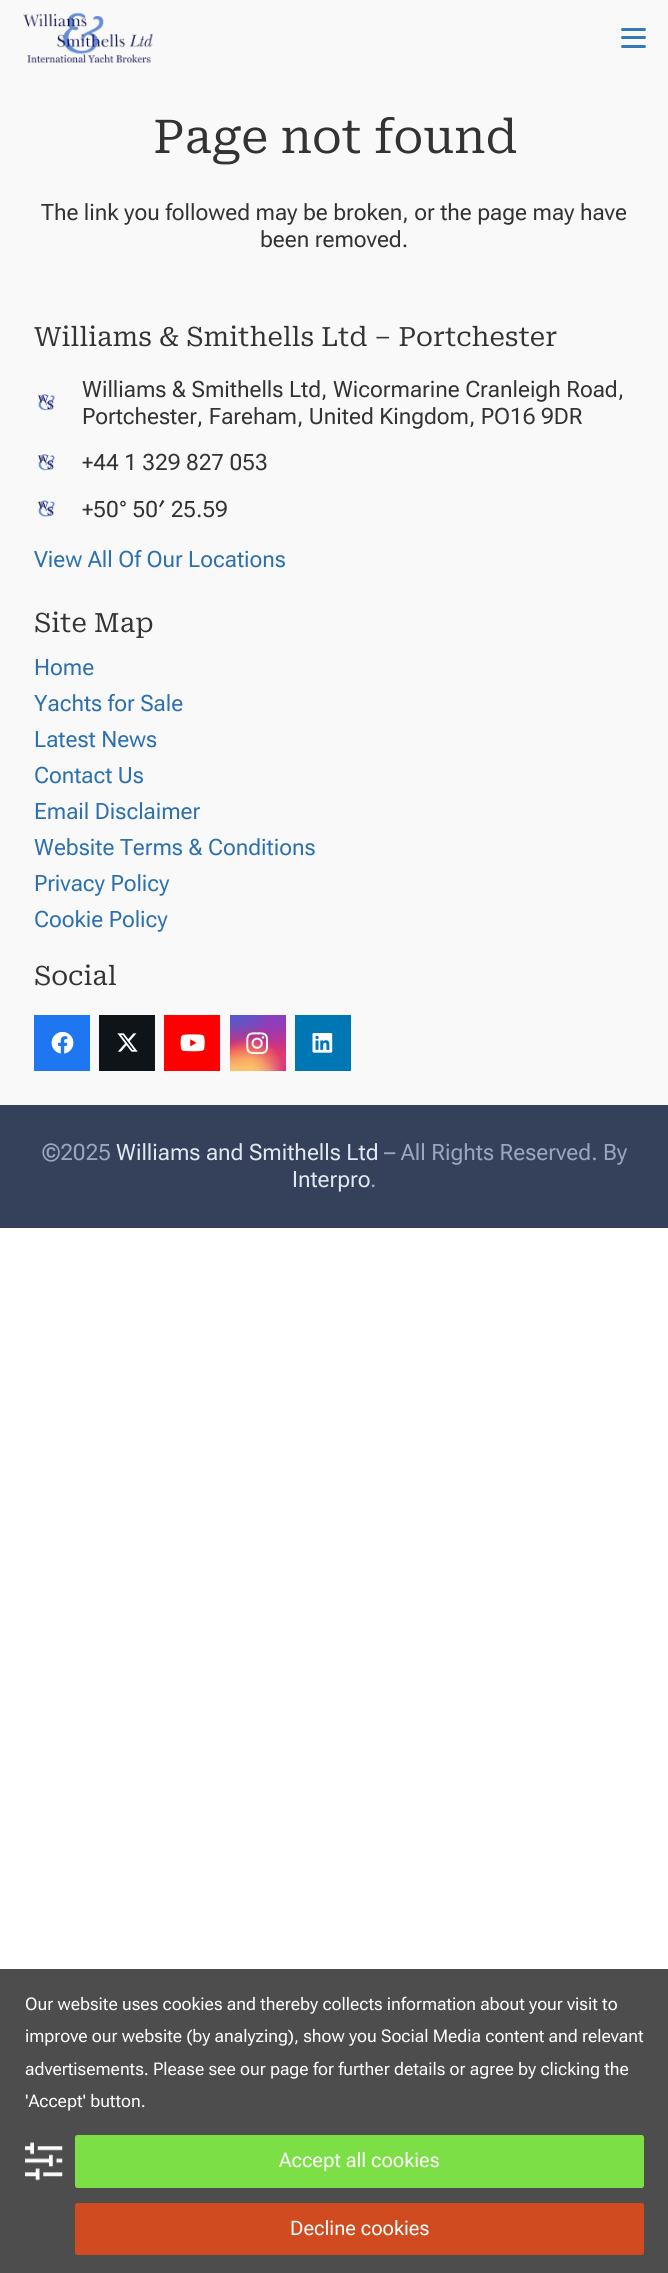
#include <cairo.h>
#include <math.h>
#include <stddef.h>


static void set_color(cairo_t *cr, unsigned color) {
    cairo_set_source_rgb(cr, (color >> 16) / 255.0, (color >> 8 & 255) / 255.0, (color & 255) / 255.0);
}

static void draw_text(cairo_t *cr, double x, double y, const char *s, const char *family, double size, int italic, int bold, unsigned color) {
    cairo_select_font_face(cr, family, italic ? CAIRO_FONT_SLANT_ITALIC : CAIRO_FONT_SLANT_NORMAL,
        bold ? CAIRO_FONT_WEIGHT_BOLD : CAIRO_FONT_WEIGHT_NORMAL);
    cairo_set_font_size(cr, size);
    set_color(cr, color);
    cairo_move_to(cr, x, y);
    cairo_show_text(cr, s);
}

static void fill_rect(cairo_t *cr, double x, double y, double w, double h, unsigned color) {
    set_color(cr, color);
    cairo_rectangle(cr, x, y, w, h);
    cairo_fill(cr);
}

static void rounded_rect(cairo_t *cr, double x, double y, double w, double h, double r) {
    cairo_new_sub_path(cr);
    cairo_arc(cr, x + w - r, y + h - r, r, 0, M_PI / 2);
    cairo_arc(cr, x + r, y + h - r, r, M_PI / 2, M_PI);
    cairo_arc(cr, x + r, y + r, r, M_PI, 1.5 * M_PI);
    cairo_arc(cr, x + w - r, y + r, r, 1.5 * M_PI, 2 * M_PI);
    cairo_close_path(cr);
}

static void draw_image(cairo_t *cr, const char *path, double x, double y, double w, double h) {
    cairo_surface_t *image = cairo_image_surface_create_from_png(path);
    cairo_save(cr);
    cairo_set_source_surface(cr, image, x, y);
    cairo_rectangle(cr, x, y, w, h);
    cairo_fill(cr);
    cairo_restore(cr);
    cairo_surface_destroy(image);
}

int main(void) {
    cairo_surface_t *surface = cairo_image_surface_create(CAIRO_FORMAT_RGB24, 668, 2273);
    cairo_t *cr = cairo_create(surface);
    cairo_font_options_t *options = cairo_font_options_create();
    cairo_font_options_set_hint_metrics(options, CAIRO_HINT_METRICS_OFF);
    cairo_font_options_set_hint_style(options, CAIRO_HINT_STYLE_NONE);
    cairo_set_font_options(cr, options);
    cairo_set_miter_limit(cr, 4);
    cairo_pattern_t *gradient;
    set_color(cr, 0xFFFFFF);
    cairo_paint(cr);
    fill_rect(cr, 0, 0, 668, 1105, 0xF9F9F9);
    draw_image(cr, "assets/img1.png", 23, 12, 130, 51);
    set_color(cr, 0x337AB7);
    rounded_rect(cr, 621, 36, 25, 3, 1.5);
    cairo_fill(cr);
    rounded_rect(cr, 621, 28, 25, 3, 1.5);
    cairo_fill(cr);
    rounded_rect(cr, 621, 45, 25, 3, 1.5);
    cairo_fill(cr);
    draw_text(cr, 153, 153, "Page not found", "Roboto Serif", 46.75, 0, 0, 0x333333);
    draw_text(cr, 41, 220, "The link you followed may be broken, or the page may have", "Roboto Flex", 22.5, 0, 0, 0x333333);
    draw_text(cr, 260, 247, "been removed.", "Roboto Flex", 22.5, 0, 0, 0x333333);
    draw_text(cr, 34, 346, "Williams & Smithells Ltd – Portchester", "Roboto Serif", 26.6, 0, 0, 0x333333);
    draw_image(cr, "assets/img2.png", 38, 394, 17, 17);
    draw_text(cr, 82, 397, "Williams & Smithells Ltd, Wicormarine Cranleigh Road,", "Roboto Flex", 22.5, 0, 0, 0x333333);
    draw_text(cr, 82, 424, "Portchester, Fareham, United Kingdom, PO16 9DR", "Roboto Flex", 22.5, 0, 0, 0x333333);
    draw_image(cr, "assets/img2.png", 38, 454, 17, 17);
    draw_text(cr, 82, 470, "+44 1 329 827 053", "Roboto Flex", 22.5, 0, 0, 0x333333);
    draw_image(cr, "assets/img3.png", 38, 500, 17, 17);
    draw_text(cr, 82, 517, "+50° 50′ 25.59", "Roboto Flex", 22.5, 0, 0, 0x333333);
    draw_text(cr, 34, 567, "View All Of Our Locations", "Roboto Flex", 22.5, 0, 0, 0x2D70AE);
    draw_text(cr, 34, 632, "Site Map", "Roboto Serif", 26.6, 0, 0, 0x333333);
    draw_text(cr, 34, 675, "Home", "Roboto Flex", 22.5, 0, 0, 0x2D70AE);
    draw_text(cr, 34, 711, "Yachts for Sale", "Roboto Flex", 22.5, 0, 0, 0x2D70AE);
    draw_text(cr, 34, 747, "Latest News", "Roboto Flex", 22.5, 0, 0, 0x2D70AE);
    draw_text(cr, 34, 783, "Contact Us", "Roboto Flex", 22.5, 0, 0, 0x2D70AE);
    draw_text(cr, 34, 819, "Email Disclaimer", "Roboto Flex", 22.5, 0, 0, 0x2D70AE);
    draw_text(cr, 34, 855, "Website Terms & Conditions", "Roboto Flex", 22.5, 0, 0, 0x2D70AE);
    draw_text(cr, 34, 891, "Privacy Policy", "Roboto Flex", 22.5, 0, 0, 0x2D70AE);
    draw_text(cr, 34, 927, "Cookie Policy", "Roboto Flex", 22.5, 0, 0, 0x2D70AE);
    draw_text(cr, 34, 985, "Social", "Roboto Serif", 26.6, 0, 0, 0x333333);
    fill_rect(cr, 34, 1015, 56, 56, 0x1E77F0);
    draw_image(cr, "assets/img4.png", 51, 1031, 23, 23);
    fill_rect(cr, 99, 1015, 56, 56, 0x0F1419);
    draw_image(cr, "assets/img5.png", 117, 1033, 21, 19);
    fill_rect(cr, 164, 1015, 56, 56, 0xFF0000);
    draw_image(cr, "assets/img6.png", 180, 1034, 25, 18);
    gradient = cairo_pattern_create_linear(258, 1015, 258, 1071);
    cairo_pattern_add_color_stop_rgba(gradient, 0, 0.396, 0.349, 0.792, 1);
    cairo_pattern_add_color_stop_rgba(gradient, 0.3, 0.737, 0.192, 0.561, 1);
    cairo_pattern_add_color_stop_rgba(gradient, 0.5, 0.894, 0.18, 0.4, 1);
    cairo_pattern_add_color_stop_rgba(gradient, 0.7, 0.98, 0.325, 0.196, 1);
    cairo_pattern_add_color_stop_rgba(gradient, 1, 1, 0.863, 0.502, 1);
    cairo_set_source(cr, gradient);
    cairo_pattern_destroy(gradient);
    cairo_rectangle(cr, 230, 1015, 56, 56);
    cairo_fill(cr);
    gradient = cairo_pattern_create_radial(286, 1071, 0, 286, 1071, 80);
    cairo_pattern_add_color_stop_rgba(gradient, 0, 0.851, 0.192, 0.478, 1);
    cairo_pattern_add_color_stop_rgba(gradient, 1, 0.851, 0.192, 0.478, 0);
    cairo_set_source(cr, gradient);
    cairo_pattern_destroy(gradient);
    cairo_rectangle(cr, 230, 1015, 56, 56);
    cairo_fill(cr);
    gradient = cairo_pattern_create_radial(0, 0, 0, 0, 0, 1);
    cairo_pattern_set_matrix(gradient, &(cairo_matrix_t){1.0 / 48, 0, 0, 1.0 / 95, -1.0 * 264 / 48, -1.0 * 1004 / 95});
    cairo_pattern_add_color_stop_rgba(gradient, 0, 0.537, 0.239, 0.761, 1);
    cairo_pattern_add_color_stop_rgba(gradient, 0.5, 0.537, 0.239, 0.761, 0);
    cairo_set_source(cr, gradient);
    cairo_pattern_destroy(gradient);
    cairo_rectangle(cr, 244, 1015, 41, 35);
    cairo_fill(cr);
    gradient = cairo_pattern_create_radial(286, 1015, 0, 286, 1015, 80);
    cairo_pattern_add_color_stop_rgba(gradient, 0, 0.537, 0.239, 0.761, 1);
    cairo_pattern_add_color_stop_rgba(gradient, 0.5, 0.537, 0.239, 0.761, 0);
    cairo_set_source(cr, gradient);
    cairo_pattern_destroy(gradient);
    cairo_rectangle(cr, 251, 1015, 35, 39);
    cairo_fill(cr);
    gradient = cairo_pattern_create_radial(0, 0, 0, 0, 0, 1);
    cairo_pattern_set_matrix(gradient, &(cairo_matrix_t){1.0 / 64, 0, 0, 1.0 / 119, -1.0 * 241 / 64, -1.0 * 987 / 119});
    cairo_pattern_add_color_stop_rgba(gradient, 0, 0.322, 0.345, 0.812, 1);
    cairo_pattern_add_color_stop_rgba(gradient, 0.5, 0.322, 0.345, 0.812, 0);
    cairo_set_source(cr, gradient);
    cairo_pattern_destroy(gradient);
    cairo_rectangle(cr, 230, 1015, 37, 30);
    cairo_fill(cr);
    gradient = cairo_pattern_create_radial(0, 0, 0, 0, 0, 1);
    cairo_pattern_set_matrix(gradient, &(cairo_matrix_t){1.0 / 80, 0, 0, 1.0 / 99, -1.0 * 230 / 80, -1.0 * 1001 / 99});
    cairo_pattern_add_color_stop_rgba(gradient, 0, 0.322, 0.345, 0.812, 1);
    cairo_pattern_add_color_stop_rgba(gradient, 0.5, 0.322, 0.345, 0.812, 0);
    cairo_set_source(cr, gradient);
    cairo_pattern_destroy(gradient);
    cairo_rectangle(cr, 230, 1015, 37, 34);
    cairo_fill(cr);
    gradient = cairo_pattern_create_radial(236, 1094, 0, 236, 1094, 94);
    cairo_pattern_add_color_stop_rgba(gradient, 0, 0.996, 0.855, 0.494, 1);
    cairo_pattern_add_color_stop_rgba(gradient, 0.5, 0.996, 0.855, 0.494, 0);
    cairo_set_source(cr, gradient);
    cairo_pattern_destroy(gradient);
    cairo_rectangle(cr, 230, 1048, 46, 23);
    cairo_fill(cr);
    gradient = cairo_pattern_create_radial(250, 1071, 0, 250, 1071, 67);
    cairo_pattern_add_color_stop_rgba(gradient, 0, 0.996, 0.773, 0.392, 1);
    cairo_pattern_add_color_stop_rgba(gradient, 0.5, 0.996, 0.773, 0.392, 0);
    cairo_set_source(cr, gradient);
    cairo_pattern_destroy(gradient);
    cairo_rectangle(cr, 230, 1038, 53, 33);
    cairo_fill(cr);
    draw_image(cr, "assets/img7.png", 246, 1032, 22, 23);
    fill_rect(cr, 295, 1015, 56, 56, 0x0077B5);
    draw_image(cr, "assets/img8.png", 312, 1033, 21, 20);
    fill_rect(cr, 0, 1105, 668, 123, 0x35415B);
    draw_text(cr, 42, 1160, "©2025", "Roboto Flex", 22.5, 0, 0, 0x9BA5BF);
    draw_text(cr, 116, 1160, "Williams and Smithells Ltd", "Roboto Flex", 22.5, 0, 0, 0xE3E7F0);
    draw_text(cr, 384, 1160, "– All Rights Reserved. By", "Roboto Flex", 22.5, 0, 0, 0x9BA5BF);
    draw_text(cr, 292, 1187, "Interpro", "Roboto Flex", 22.5, 0, 0, 0xE3E7F0);
    draw_text(cr, 370, 1187, ".", "Roboto Flex", 22.5, 0, 0, 0x9BA5BF);
    fill_rect(cr, 0, 1969, 668, 304, 0x4D4D4D);
    draw_text(cr, 25, 2010, "Our website uses cookies and thereby collects information about your visit to", "Roboto Flex", 17.5, 0, 0, 0xFFFFFF);
    draw_text(cr, 25, 2042, "improve our website (by analyzing), show you Social Media content and relevant", "Roboto Flex", 17.5, 0, 0, 0xFFFFFF);
    draw_text(cr, 25, 2075, "advertisements. Please see our page for further details or agree by clicking the", "Roboto Flex", 17.5, 0, 0, 0xFFFFFF);
    draw_text(cr, 25, 2107, "'Accept' button.", "Roboto Flex", 17.5, 0, 0, 0xFFFFFF);
    draw_image(cr, "assets/img9.png", 25, 2142, 38, 39);
    set_color(cr, 0x7CDF46);
    rounded_rect(cr, 75, 2135, 569, 53, 2.5);
    cairo_fill(cr);
    draw_text(cr, 279, 2167, "Accept all cookies", "Roboto Flex", 20, 0, 0, 0xFFFFFF);
    set_color(cr, 0xD04C20);
    rounded_rect(cr, 75, 2203, 569, 52, 2.5);
    cairo_fill(cr);
    draw_text(cr, 290, 2235, "Decline cookies", "Roboto Flex", 20, 0, 0, 0xFFFFFF);
    cairo_surface_write_to_png(surface, "output.png");
    cairo_font_options_destroy(options);
    cairo_destroy(cr);
    cairo_surface_destroy(surface);
    return 0;
}
